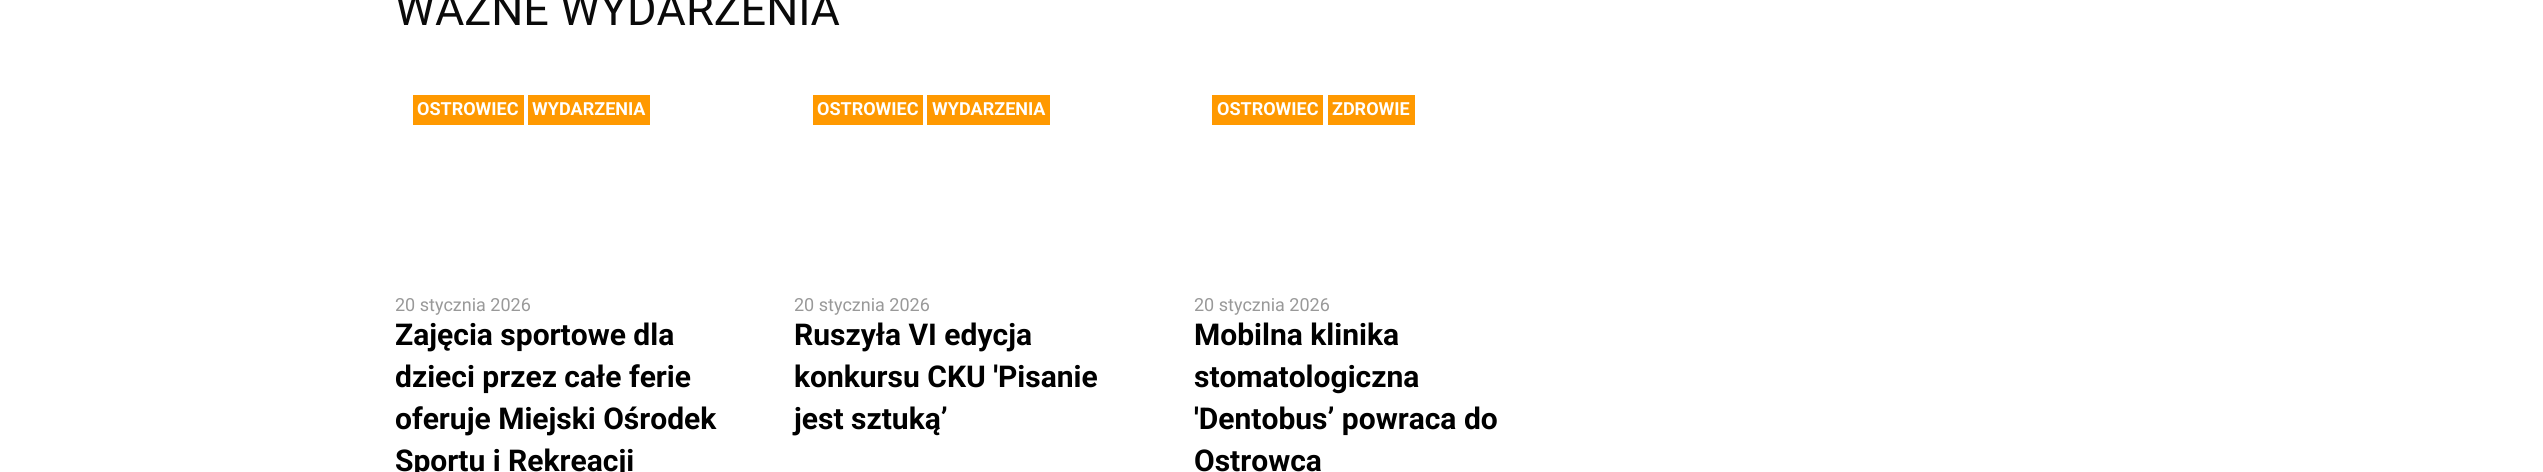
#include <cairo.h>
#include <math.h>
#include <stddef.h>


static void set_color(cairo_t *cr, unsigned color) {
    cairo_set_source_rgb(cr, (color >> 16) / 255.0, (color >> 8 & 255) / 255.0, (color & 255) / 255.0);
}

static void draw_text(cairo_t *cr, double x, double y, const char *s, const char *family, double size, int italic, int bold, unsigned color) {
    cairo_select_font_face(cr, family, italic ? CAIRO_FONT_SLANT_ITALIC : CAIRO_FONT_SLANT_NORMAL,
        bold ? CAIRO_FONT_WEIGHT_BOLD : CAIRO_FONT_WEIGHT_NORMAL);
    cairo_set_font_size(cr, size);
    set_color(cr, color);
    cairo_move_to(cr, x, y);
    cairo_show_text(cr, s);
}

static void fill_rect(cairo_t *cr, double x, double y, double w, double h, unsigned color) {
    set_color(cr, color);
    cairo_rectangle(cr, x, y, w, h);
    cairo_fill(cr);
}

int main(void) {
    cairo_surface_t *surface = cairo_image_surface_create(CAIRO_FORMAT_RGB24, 2543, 472);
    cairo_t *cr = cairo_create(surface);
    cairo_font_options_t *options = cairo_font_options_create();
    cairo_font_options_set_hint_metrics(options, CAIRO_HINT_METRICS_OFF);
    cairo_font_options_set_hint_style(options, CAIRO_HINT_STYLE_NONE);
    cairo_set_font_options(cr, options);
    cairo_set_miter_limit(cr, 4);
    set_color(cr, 0xFFFFFF);
    cairo_paint(cr);
    draw_text(cr, 395, 25, "WAŻNE WYDARZENIA", "Roboto", 45, 0, 0, 0x0A0A0A);
    fill_rect(cr, 413, 95, 111, 30, 0xFF9900);
    draw_text(cr, 417, 115, "OSTROWIEC", "Roboto", 18, 0, 1, 0xFFFFFF);
    fill_rect(cr, 528, 95, 122, 30, 0xFF9900);
    draw_text(cr, 532, 115, "WYDARZENIA", "Roboto", 18, 0, 1, 0xFFFFFF);
    draw_text(cr, 395, 311, "20 stycznia 2026", "Roboto", 18, 0, 0, 0x999999);
    draw_text(cr, 395, 345, "Zajęcia sportowe dla", "Roboto", 30, 0, 1, 0x000000);
    draw_text(cr, 395, 387, "dzieci przez całe ferie", "Roboto", 30, 0, 1, 0x000000);
    draw_text(cr, 395, 429, "oferuje Miejski Ośrodek", "Roboto", 30, 0, 1, 0x000000);
    draw_text(cr, 395, 471, "Sportu i Rekreacji", "Roboto", 30, 0, 1, 0x000000);
    fill_rect(cr, 813, 95, 110, 30, 0xFF9900);
    draw_text(cr, 817, 115, "OSTROWIEC", "Roboto", 18, 0, 1, 0xFFFFFF);
    fill_rect(cr, 927, 95, 123, 30, 0xFF9900);
    draw_text(cr, 932, 115, "WYDARZENIA", "Roboto", 18, 0, 1, 0xFFFFFF);
    draw_text(cr, 794, 311, "20 stycznia 2026", "Roboto", 18, 0, 0, 0x999999);
    draw_text(cr, 794, 345, "Ruszyła VI edycja", "Roboto", 30, 0, 1, 0x000000);
    draw_text(cr, 794, 387, "konkursu CKU 'Pisanie", "Roboto", 30, 0, 1, 0x000000);
    draw_text(cr, 794, 429, "jest sztuką’", "Roboto", 30, 0, 1, 0x000000);
    fill_rect(cr, 1212, 95, 111, 30, 0xFF9900);
    draw_text(cr, 1217, 115, "OSTROWIEC", "Roboto", 18, 0, 1, 0xFFFFFF);
    fill_rect(cr, 1328, 95, 87, 30, 0xFF9900);
    draw_text(cr, 1332, 115, "ZDROWIE", "Roboto", 18, 0, 1, 0xFFFFFF);
    draw_text(cr, 1194, 311, "20 stycznia 2026", "Roboto", 18, 0, 0, 0x999999);
    draw_text(cr, 1194, 345, "Mobilna klinika", "Roboto", 30, 0, 1, 0x000000);
    draw_text(cr, 1194, 387, "stomatologiczna", "Roboto", 30, 0, 1, 0x000000);
    draw_text(cr, 1194, 429, "'Dentobus’ powraca do", "Roboto", 30, 0, 1, 0x000000);
    draw_text(cr, 1194, 471, "Ostrowca", "Roboto", 30, 0, 1, 0x000000);
    cairo_surface_write_to_png(surface, "output.png");
    cairo_font_options_destroy(options);
    cairo_destroy(cr);
    cairo_surface_destroy(surface);
    return 0;
}
